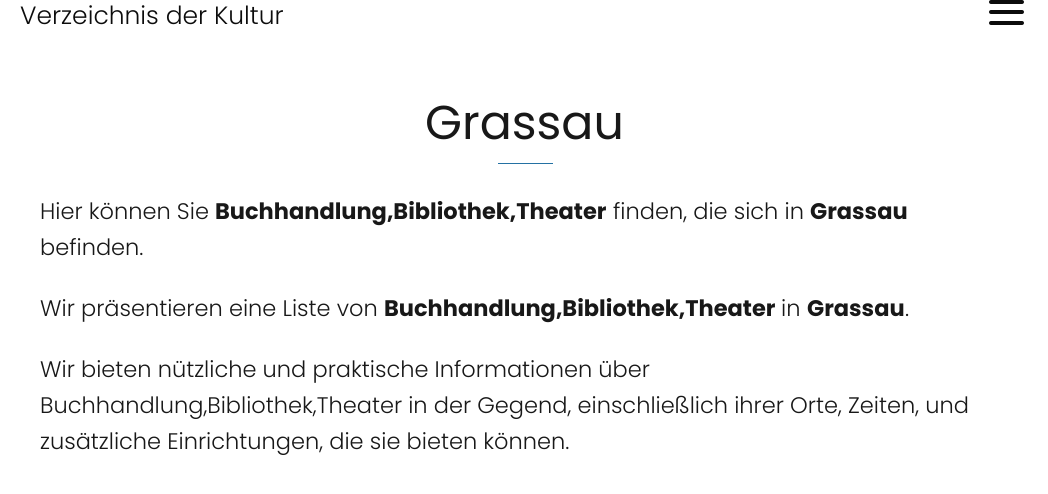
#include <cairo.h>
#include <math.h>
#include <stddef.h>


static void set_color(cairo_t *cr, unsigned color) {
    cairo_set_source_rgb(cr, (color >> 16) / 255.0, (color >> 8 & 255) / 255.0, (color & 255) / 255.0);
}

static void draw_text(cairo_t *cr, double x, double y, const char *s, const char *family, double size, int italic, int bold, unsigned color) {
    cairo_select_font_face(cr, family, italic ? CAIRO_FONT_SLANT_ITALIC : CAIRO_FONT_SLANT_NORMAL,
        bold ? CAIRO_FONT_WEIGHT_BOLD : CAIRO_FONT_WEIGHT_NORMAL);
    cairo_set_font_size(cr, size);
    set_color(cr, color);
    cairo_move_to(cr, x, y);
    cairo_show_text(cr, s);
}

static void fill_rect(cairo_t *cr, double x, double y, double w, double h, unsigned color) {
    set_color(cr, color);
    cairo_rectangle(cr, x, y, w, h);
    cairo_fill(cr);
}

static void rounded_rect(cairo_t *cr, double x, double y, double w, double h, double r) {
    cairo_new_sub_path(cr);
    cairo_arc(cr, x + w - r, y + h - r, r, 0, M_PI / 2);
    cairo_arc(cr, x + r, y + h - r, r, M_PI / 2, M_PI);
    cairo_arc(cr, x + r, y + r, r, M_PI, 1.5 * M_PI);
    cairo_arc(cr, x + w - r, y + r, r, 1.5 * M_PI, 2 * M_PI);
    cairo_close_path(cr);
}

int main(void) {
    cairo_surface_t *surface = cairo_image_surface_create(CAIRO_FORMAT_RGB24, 1048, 494);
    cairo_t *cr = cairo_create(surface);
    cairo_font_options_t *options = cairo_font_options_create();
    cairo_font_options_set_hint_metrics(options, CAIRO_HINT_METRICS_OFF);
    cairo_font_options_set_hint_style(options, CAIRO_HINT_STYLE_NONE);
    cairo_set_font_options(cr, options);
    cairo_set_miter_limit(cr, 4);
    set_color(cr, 0xFFFFFF);
    cairo_paint(cr);
    draw_text(cr, 20, 24, "Verzeichnis der Kultur", "Poppins Light", 25, 0, 0, 0x0C0C0C);
    rounded_rect(cr, 989, 0, 35, 4, 2);
    cairo_fill(cr);
    rounded_rect(cr, 989, 10, 35, 4, 2);
    cairo_fill(cr);
    rounded_rect(cr, 989, 21, 35, 4, 2);
    cairo_fill(cr);
    draw_text(cr, 425, 139, "Grassau", "Poppins", 47.5, 0, 0, 0x181818);
    fill_rect(cr, 498, 163, 55, 1, 0x2471A3);
    draw_text(cr, 40, 219, "Hier können Sie", "Poppins Light", 22.5, 0, 0, 0x181818);
    draw_text(cr, 215, 219, "Buchhandlung,Bibliothek,Theater", "Poppins", 22.5, 0, 1, 0x181818);
    draw_text(cr, 613, 219, "finden, die sich in", "Poppins Light", 22.5, 0, 0, 0x181818);
    draw_text(cr, 810, 219, "Grassau", "Poppins", 22.5, 0, 1, 0x181818);
    draw_text(cr, 40, 255, "befinden.", "Poppins Light", 22.5, 0, 0, 0x181818);
    draw_text(cr, 40, 316, "Wir präsentieren eine Liste von", "Poppins Light", 22.5, 0, 0, 0x181818);
    draw_text(cr, 384, 316, "Buchhandlung,Bibliothek,Theater", "Poppins", 22.5, 0, 1, 0x181818);
    draw_text(cr, 781, 316, "in", "Poppins Light", 22.5, 0, 0, 0x181818);
    draw_text(cr, 807, 316, "Grassau", "Poppins", 22.5, 0, 1, 0x181818);
    draw_text(cr, 905, 316, ".", "Poppins Light", 22.5, 0, 0, 0x181818);
    draw_text(cr, 40, 377, "Wir bieten nützliche und praktische Informationen über", "Poppins Light", 22.5, 0, 0, 0x181818);
    draw_text(cr, 40, 413, "Buchhandlung,Bibliothek,Theater in der Gegend, einschließlich ihrer Orte, Zeiten, und", "Poppins Light", 22.5, 0, 0, 0x181818);
    draw_text(cr, 40, 449, "zusätzliche Einrichtungen, die sie bieten können.", "Poppins Light", 22.5, 0, 0, 0x181818);
    cairo_surface_write_to_png(surface, "output.png");
    cairo_font_options_destroy(options);
    cairo_destroy(cr);
    cairo_surface_destroy(surface);
    return 0;
}
